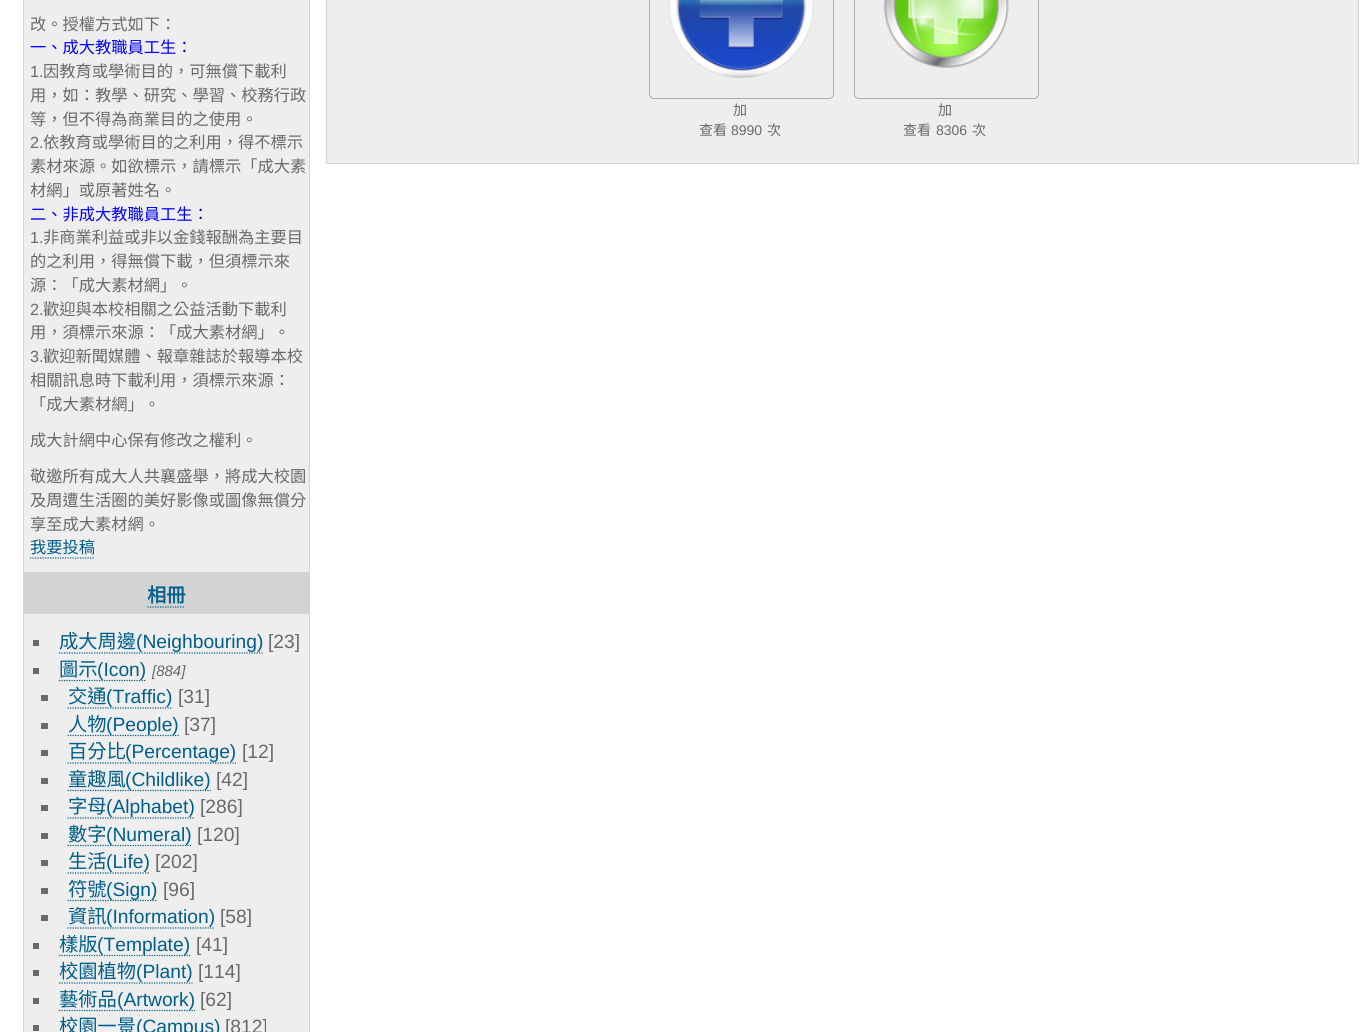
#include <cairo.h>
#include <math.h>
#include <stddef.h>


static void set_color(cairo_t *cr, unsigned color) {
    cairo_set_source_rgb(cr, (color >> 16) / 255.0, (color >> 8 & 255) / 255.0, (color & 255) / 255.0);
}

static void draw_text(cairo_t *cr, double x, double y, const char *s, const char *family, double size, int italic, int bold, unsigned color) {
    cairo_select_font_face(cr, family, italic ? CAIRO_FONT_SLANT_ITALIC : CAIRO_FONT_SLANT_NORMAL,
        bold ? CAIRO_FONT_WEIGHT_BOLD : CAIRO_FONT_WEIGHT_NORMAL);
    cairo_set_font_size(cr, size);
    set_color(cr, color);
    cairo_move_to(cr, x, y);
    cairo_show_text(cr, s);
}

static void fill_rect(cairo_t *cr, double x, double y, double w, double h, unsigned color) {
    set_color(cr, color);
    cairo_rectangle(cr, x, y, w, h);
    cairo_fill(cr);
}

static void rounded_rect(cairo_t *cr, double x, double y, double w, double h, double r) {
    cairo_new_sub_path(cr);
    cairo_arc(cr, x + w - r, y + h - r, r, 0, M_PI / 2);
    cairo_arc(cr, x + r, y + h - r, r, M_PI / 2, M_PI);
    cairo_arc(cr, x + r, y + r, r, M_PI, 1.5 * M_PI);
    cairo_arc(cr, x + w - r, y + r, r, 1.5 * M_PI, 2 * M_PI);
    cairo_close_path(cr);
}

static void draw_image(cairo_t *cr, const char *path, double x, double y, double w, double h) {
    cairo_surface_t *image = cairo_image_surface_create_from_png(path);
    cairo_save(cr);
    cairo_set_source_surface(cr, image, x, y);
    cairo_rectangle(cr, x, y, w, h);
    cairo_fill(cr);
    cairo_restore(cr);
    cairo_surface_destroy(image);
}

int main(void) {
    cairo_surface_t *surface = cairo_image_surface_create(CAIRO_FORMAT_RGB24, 1364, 1032);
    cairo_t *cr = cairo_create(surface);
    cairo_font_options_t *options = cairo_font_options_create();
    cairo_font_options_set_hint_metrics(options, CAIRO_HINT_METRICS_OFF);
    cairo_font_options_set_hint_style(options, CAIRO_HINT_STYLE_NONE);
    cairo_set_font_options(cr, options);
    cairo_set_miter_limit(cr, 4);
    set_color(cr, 0xFFFFFF);
    cairo_paint(cr);
    set_color(cr, 0xEEEEEE);
    cairo_rectangle(cr, 23.5, -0.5, 286, 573);
    cairo_fill_preserve(cr);
    set_color(cr, 0xD3D3D3);
    cairo_set_line_width(cr, 1);
    cairo_stroke(cr);
    draw_text(cr, 30, 30, "改。授權方式如下：", "Noto Sans CJK TC", 16.25, 0, 0, 0x696969);
    draw_text(cr, 30, 53, "一、成大教職員工生：", "Noto Sans CJK TC", 16.25, 0, 0, 0x0000FF);
    draw_text(cr, 30, 77, "1.", "Liberation Sans", 16.25, 0, 0, 0x696969);
    draw_text(cr, 43, 77, "因教育或學術目的，可無償下載利", "Noto Sans CJK TC", 16.25, 0, 0, 0x696969);
    draw_text(cr, 30, 101, "用，如：教學、研究、學習、校務行政", "Noto Sans CJK TC", 16.25, 0, 0, 0x696969);
    draw_text(cr, 30, 125, "等，但不得為商業目的之使用。", "Noto Sans CJK TC", 16.25, 0, 0, 0x696969);
    draw_text(cr, 30, 148, "2.", "Liberation Sans", 16.25, 0, 0, 0x696969);
    draw_text(cr, 43, 148, "依教育或學術目的之利用，得不標示", "Noto Sans CJK TC", 16.25, 0, 0, 0x696969);
    draw_text(cr, 30, 172, "素材來源。如欲標示，請標示「成大素", "Noto Sans CJK TC", 16.25, 0, 0, 0x696969);
    draw_text(cr, 30, 196, "材網」或原著姓名。", "Noto Sans CJK TC", 16.25, 0, 0, 0x696969);
    draw_text(cr, 30, 220, "二、非成大教職員工生：", "Noto Sans CJK TC", 16.25, 0, 0, 0x0000FF);
    draw_text(cr, 30, 243, "1.", "Liberation Sans", 16.25, 0, 0, 0x696969);
    draw_text(cr, 43, 243, "非商業利益或非以金錢報酬為主要目", "Noto Sans CJK TC", 16.25, 0, 0, 0x696969);
    draw_text(cr, 30, 267, "的之利用，得無償下載，但須標示來", "Noto Sans CJK TC", 16.25, 0, 0, 0x696969);
    draw_text(cr, 30, 291, "源：「成大素材網」。", "Noto Sans CJK TC", 16.25, 0, 0, 0x696969);
    draw_text(cr, 30, 315, "2.", "Liberation Sans", 16.25, 0, 0, 0x696969);
    draw_text(cr, 43, 315, "歡迎與本校相關之公益活動下載利", "Noto Sans CJK TC", 16.25, 0, 0, 0x696969);
    draw_text(cr, 30, 338, "用，須標示來源：「成大素材網」。", "Noto Sans CJK TC", 16.25, 0, 0, 0x696969);
    draw_text(cr, 30, 362, "3.", "Liberation Sans", 16.25, 0, 0, 0x696969);
    draw_text(cr, 43, 362, "歡迎新聞媒體、報章雜誌於報導本校", "Noto Sans CJK TC", 16.25, 0, 0, 0x696969);
    draw_text(cr, 30, 386, "相關訊息時下載利用，須標示來源：", "Noto Sans CJK TC", 16.25, 0, 0, 0x696969);
    draw_text(cr, 30, 410, "「成大素材網」。", "Noto Sans CJK TC", 16.25, 0, 0, 0x696969);
    draw_text(cr, 30, 446, "成大計網中心保有修改之權利。", "Noto Sans CJK TC", 16.25, 0, 0, 0x696969);
    draw_text(cr, 30, 482, "敬邀所有成大人共襄盛舉，將成大校園", "Noto Sans CJK TC", 16.25, 0, 0, 0x696969);
    draw_text(cr, 30, 506, "及周遭生活圈的美好影像或圖像無償分", "Noto Sans CJK TC", 16.25, 0, 0, 0x696969);
    draw_text(cr, 30, 530, "享至成大素材網。", "Noto Sans CJK TC", 16.25, 0, 0, 0x696969);
    draw_text(cr, 30, 553, "我要投稿", "Noto Sans CJK TC", 16.25, 0, 0, 0x005E89);
    cairo_new_path(cr);
    cairo_move_to(cr, 30, 558);
    cairo_line_to(cr, 95, 558);
    cairo_set_line_width(cr, 1.2);
    cairo_set_dash(cr, (double[]){1.25, 1.25}, 2, 0);
    cairo_stroke(cr);
    fill_rect(cr, 24, 614, 285, 418, 0xEEEEEE);
    cairo_rectangle(cr, 23.5, 573.5, 286, 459);
    set_color(cr, 0xD3D3D3);
    cairo_set_line_width(cr, 1);
    cairo_set_dash(cr, NULL, 0, 0);
    cairo_stroke(cr);
    fill_rect(cr, 24, 574, 285, 40, 0xD3D3D3);
    draw_text(cr, 147, 602, "相冊", "Noto Sans CJK TC", 19.25, 0, 1, 0x005E89);
    cairo_new_path(cr);
    cairo_move_to(cr, 147.5, 607);
    cairo_line_to(cr, 185, 607);
    cairo_set_line_width(cr, 1.2);
    cairo_set_dash(cr, (double[]){1.25, 1.25}, 2, 0);
    cairo_stroke(cr);
    fill_rect(cr, 33, 640, 6, 6, 0x696969);
    draw_text(cr, 59, 648, "成大周邊", "Noto Sans CJK TC", 19.25, 0, 0, 0x005E89);
    draw_text(cr, 136, 648, "(Neighbouring)", "Liberation Sans", 19.25, 0, 0, 0x005E89);
    cairo_new_path(cr);
    cairo_move_to(cr, 59, 653);
    cairo_line_to(cr, 262.5, 653);
    cairo_stroke(cr);
    draw_text(cr, 268, 648, "[23]", "Liberation Sans", 19.25, 0, 0, 0x696969);
    fill_rect(cr, 33, 668, 6, 6, 0x696969);
    draw_text(cr, 59, 676, "圖示", "Noto Sans CJK TC", 19.25, 0, 0, 0x005E89);
    cairo_new_path(cr);
    cairo_move_to(cr, 59, 680.5);
    cairo_line_to(cr, 146, 680.5);
    cairo_stroke(cr);
    draw_text(cr, 97, 676, "(Icon)", "Liberation Sans", 19.25, 0, 0, 0x005E89);
    draw_text(cr, 152, 676, "[884]", "Liberation Sans", 15, 1, 0, 0x696969);
    fill_rect(cr, 41, 695, 7, 6, 0x696969);
    draw_text(cr, 68, 703, "交通", "Noto Sans CJK TC", 19.25, 0, 0, 0x005E89);
    draw_text(cr, 106, 703, "(Traffic)", "Liberation Sans", 19.25, 0, 0, 0x005E89);
    cairo_new_path(cr);
    cairo_move_to(cr, 67.5, 708);
    cairo_line_to(cr, 172.5, 708);
    cairo_stroke(cr);
    draw_text(cr, 178, 703, "[31]", "Liberation Sans", 19.25, 0, 0, 0x696969);
    fill_rect(cr, 41, 723, 7, 6, 0x696969);
    draw_text(cr, 68, 731, "人物", "Noto Sans CJK TC", 19.25, 0, 0, 0x005E89);
    cairo_new_path(cr);
    cairo_move_to(cr, 67.5, 735.5);
    cairo_line_to(cr, 179, 735.5);
    cairo_stroke(cr);
    draw_text(cr, 106, 731, "(People)", "Liberation Sans", 19.25, 0, 0, 0x005E89);
    draw_text(cr, 184, 731, "[37]", "Liberation Sans", 19.25, 0, 0, 0x696969);
    fill_rect(cr, 41, 750, 7, 6, 0x696969);
    draw_text(cr, 68, 758, "百分比", "Noto Sans CJK TC", 19.25, 0, 0, 0x005E89);
    draw_text(cr, 125, 758, "(Percentage)", "Liberation Sans", 19.25, 0, 0, 0x005E89);
    cairo_new_path(cr);
    cairo_move_to(cr, 67.5, 763);
    cairo_line_to(cr, 236, 763);
    cairo_stroke(cr);
    draw_text(cr, 242, 758, "[12]", "Liberation Sans", 19.25, 0, 0, 0x696969);
    fill_rect(cr, 41, 778, 7, 6, 0x696969);
    draw_text(cr, 68, 786, "童趣風", "Noto Sans CJK TC", 19.25, 0, 0, 0x005E89);
    cairo_new_path(cr);
    cairo_move_to(cr, 67.5, 790.5);
    cairo_line_to(cr, 211, 790.5);
    cairo_stroke(cr);
    draw_text(cr, 125, 786, "(Childlike)", "Liberation Sans", 19.25, 0, 0, 0x005E89);
    draw_text(cr, 216, 786, "[42]", "Liberation Sans", 19.25, 0, 0, 0x696969);
    fill_rect(cr, 41, 805, 7, 6, 0x696969);
    draw_text(cr, 68, 813, "字母", "Noto Sans CJK TC", 19.25, 0, 0, 0x005E89);
    draw_text(cr, 106, 813, "(Alphabet)", "Liberation Sans", 19.25, 0, 0, 0x005E89);
    cairo_new_path(cr);
    cairo_move_to(cr, 67.5, 818);
    cairo_line_to(cr, 195, 818);
    cairo_stroke(cr);
    draw_text(cr, 200, 813, "[286]", "Liberation Sans", 19.25, 0, 0, 0x696969);
    fill_rect(cr, 41, 833, 7, 6, 0x696969);
    draw_text(cr, 68, 841, "數字", "Noto Sans CJK TC", 19.25, 0, 0, 0x005E89);
    cairo_new_path(cr);
    cairo_move_to(cr, 67.5, 845.5);
    cairo_line_to(cr, 191, 845.5);
    cairo_stroke(cr);
    draw_text(cr, 106, 841, "(Numeral)", "Liberation Sans", 19.25, 0, 0, 0x005E89);
    draw_text(cr, 197, 841, "[120]", "Liberation Sans", 19.25, 0, 0, 0x696969);
    fill_rect(cr, 41, 860, 7, 6, 0x696969);
    draw_text(cr, 68, 868, "生活", "Noto Sans CJK TC", 19.25, 0, 0, 0x005E89);
    draw_text(cr, 106, 868, "(Life)", "Liberation Sans", 19.25, 0, 0, 0x005E89);
    cairo_new_path(cr);
    cairo_move_to(cr, 67.5, 873);
    cairo_line_to(cr, 150, 873);
    cairo_stroke(cr);
    draw_text(cr, 155, 868, "[202]", "Liberation Sans", 19.25, 0, 0, 0x696969);
    fill_rect(cr, 41, 888, 7, 6, 0x696969);
    draw_text(cr, 68, 896, "符號", "Noto Sans CJK TC", 19.25, 0, 0, 0x005E89);
    cairo_new_path(cr);
    cairo_move_to(cr, 67.5, 900.5);
    cairo_line_to(cr, 157.5, 900.5);
    cairo_stroke(cr);
    draw_text(cr, 106, 896, "(Sign)", "Liberation Sans", 19.25, 0, 0, 0x005E89);
    draw_text(cr, 163, 896, "[96]", "Liberation Sans", 19.25, 0, 0, 0x696969);
    fill_rect(cr, 41, 915, 7, 6, 0x696969);
    draw_text(cr, 68, 923, "資訊", "Noto Sans CJK TC", 19.25, 0, 0, 0x005E89);
    draw_text(cr, 106, 923, "(Information)", "Liberation Sans", 19.25, 0, 0, 0x005E89);
    cairo_new_path(cr);
    cairo_move_to(cr, 67.5, 928);
    cairo_line_to(cr, 215, 928);
    cairo_stroke(cr);
    draw_text(cr, 220, 923, "[58]", "Liberation Sans", 19.25, 0, 0, 0x696969);
    fill_rect(cr, 33, 943, 6, 6, 0x696969);
    draw_text(cr, 59, 951, "樣版", "Noto Sans CJK TC", 19.25, 0, 0, 0x005E89);
    cairo_new_path(cr);
    cairo_move_to(cr, 59, 955.5);
    cairo_line_to(cr, 190, 955.5);
    cairo_stroke(cr);
    draw_text(cr, 97, 951, "(Template)", "Liberation Sans", 19.25, 0, 0, 0x005E89);
    draw_text(cr, 196, 951, "[41]", "Liberation Sans", 19.25, 0, 0, 0x696969);
    fill_rect(cr, 33, 970, 6, 6, 0x696969);
    draw_text(cr, 59, 978, "校園植物", "Noto Sans CJK TC", 19.25, 0, 0, 0x005E89);
    draw_text(cr, 136, 978, "(Plant)", "Liberation Sans", 19.25, 0, 0, 0x005E89);
    cairo_new_path(cr);
    cairo_move_to(cr, 59, 983);
    cairo_line_to(cr, 192.5, 983);
    cairo_stroke(cr);
    draw_text(cr, 198, 978, "[114]", "Liberation Sans", 19.25, 0, 0, 0x696969);
    fill_rect(cr, 33, 998, 6, 6, 0x696969);
    draw_text(cr, 59, 1006, "藝術品", "Noto Sans CJK TC", 19.25, 0, 0, 0x005E89);
    cairo_new_path(cr);
    cairo_move_to(cr, 59, 1010.5);
    cairo_line_to(cr, 195, 1010.5);
    cairo_stroke(cr);
    draw_text(cr, 117, 1006, "(Artwork)", "Liberation Sans", 19.25, 0, 0, 0x005E89);
    draw_text(cr, 200, 1006, "[62]", "Liberation Sans", 19.25, 0, 0, 0x696969);
    fill_rect(cr, 33, 1025, 6, 6, 0x696969);
    draw_text(cr, 59, 1033, "校園一景", "Noto Sans CJK TC", 19.25, 0, 0, 0x005E89);
    draw_text(cr, 136, 1033, "(Campus)", "Liberation Sans", 19.25, 0, 0, 0x005E89);
    draw_text(cr, 225, 1033, "[812]", "Liberation Sans", 19.25, 0, 0, 0x696969);
    set_color(cr, 0xEEEEEE);
    cairo_rectangle(cr, 326.5, -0.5, 1032, 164);
    cairo_fill_preserve(cr);
    set_color(cr, 0xD3D3D3);
    cairo_set_line_width(cr, 1);
    cairo_set_dash(cr, NULL, 0, 0);
    cairo_stroke(cr);
    rounded_rect(cr, 649.5, -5.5, 184, 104, 4.5);
    set_color(cr, 0xAAAAAA);
    cairo_stroke(cr);
    draw_image(cr, "assets/img1.png", 669, 0, 145, 79);
    draw_text(cr, 733, 115, "加", "Noto Sans CJK TC", 14, 0, 0, 0x696969);
    draw_text(cr, 699, 135, "查看", "Noto Sans CJK TC", 14, 0, 0, 0x696969);
    draw_text(cr, 731, 135, "8990", "Liberation Sans", 14, 0, 0, 0x696969);
    draw_text(cr, 767, 135, "次", "Noto Sans CJK TC", 14, 0, 0, 0x696969);
    rounded_rect(cr, 854.5, -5.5, 184, 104, 4.5);
    set_color(cr, 0xAAAAAA);
    cairo_stroke(cr);
    draw_image(cr, "assets/img2.png", 883, 0, 126, 68);
    draw_text(cr, 938, 115, "加", "Noto Sans CJK TC", 14, 0, 0, 0x696969);
    draw_text(cr, 903, 135, "查看", "Noto Sans CJK TC", 14, 0, 0, 0x696969);
    draw_text(cr, 936, 135, "8306", "Liberation Sans", 14, 0, 0, 0x696969);
    draw_text(cr, 972, 135, "次", "Noto Sans CJK TC", 14, 0, 0, 0x696969);
    cairo_surface_write_to_png(surface, "output.png");
    cairo_font_options_destroy(options);
    cairo_destroy(cr);
    cairo_surface_destroy(surface);
    return 0;
}
